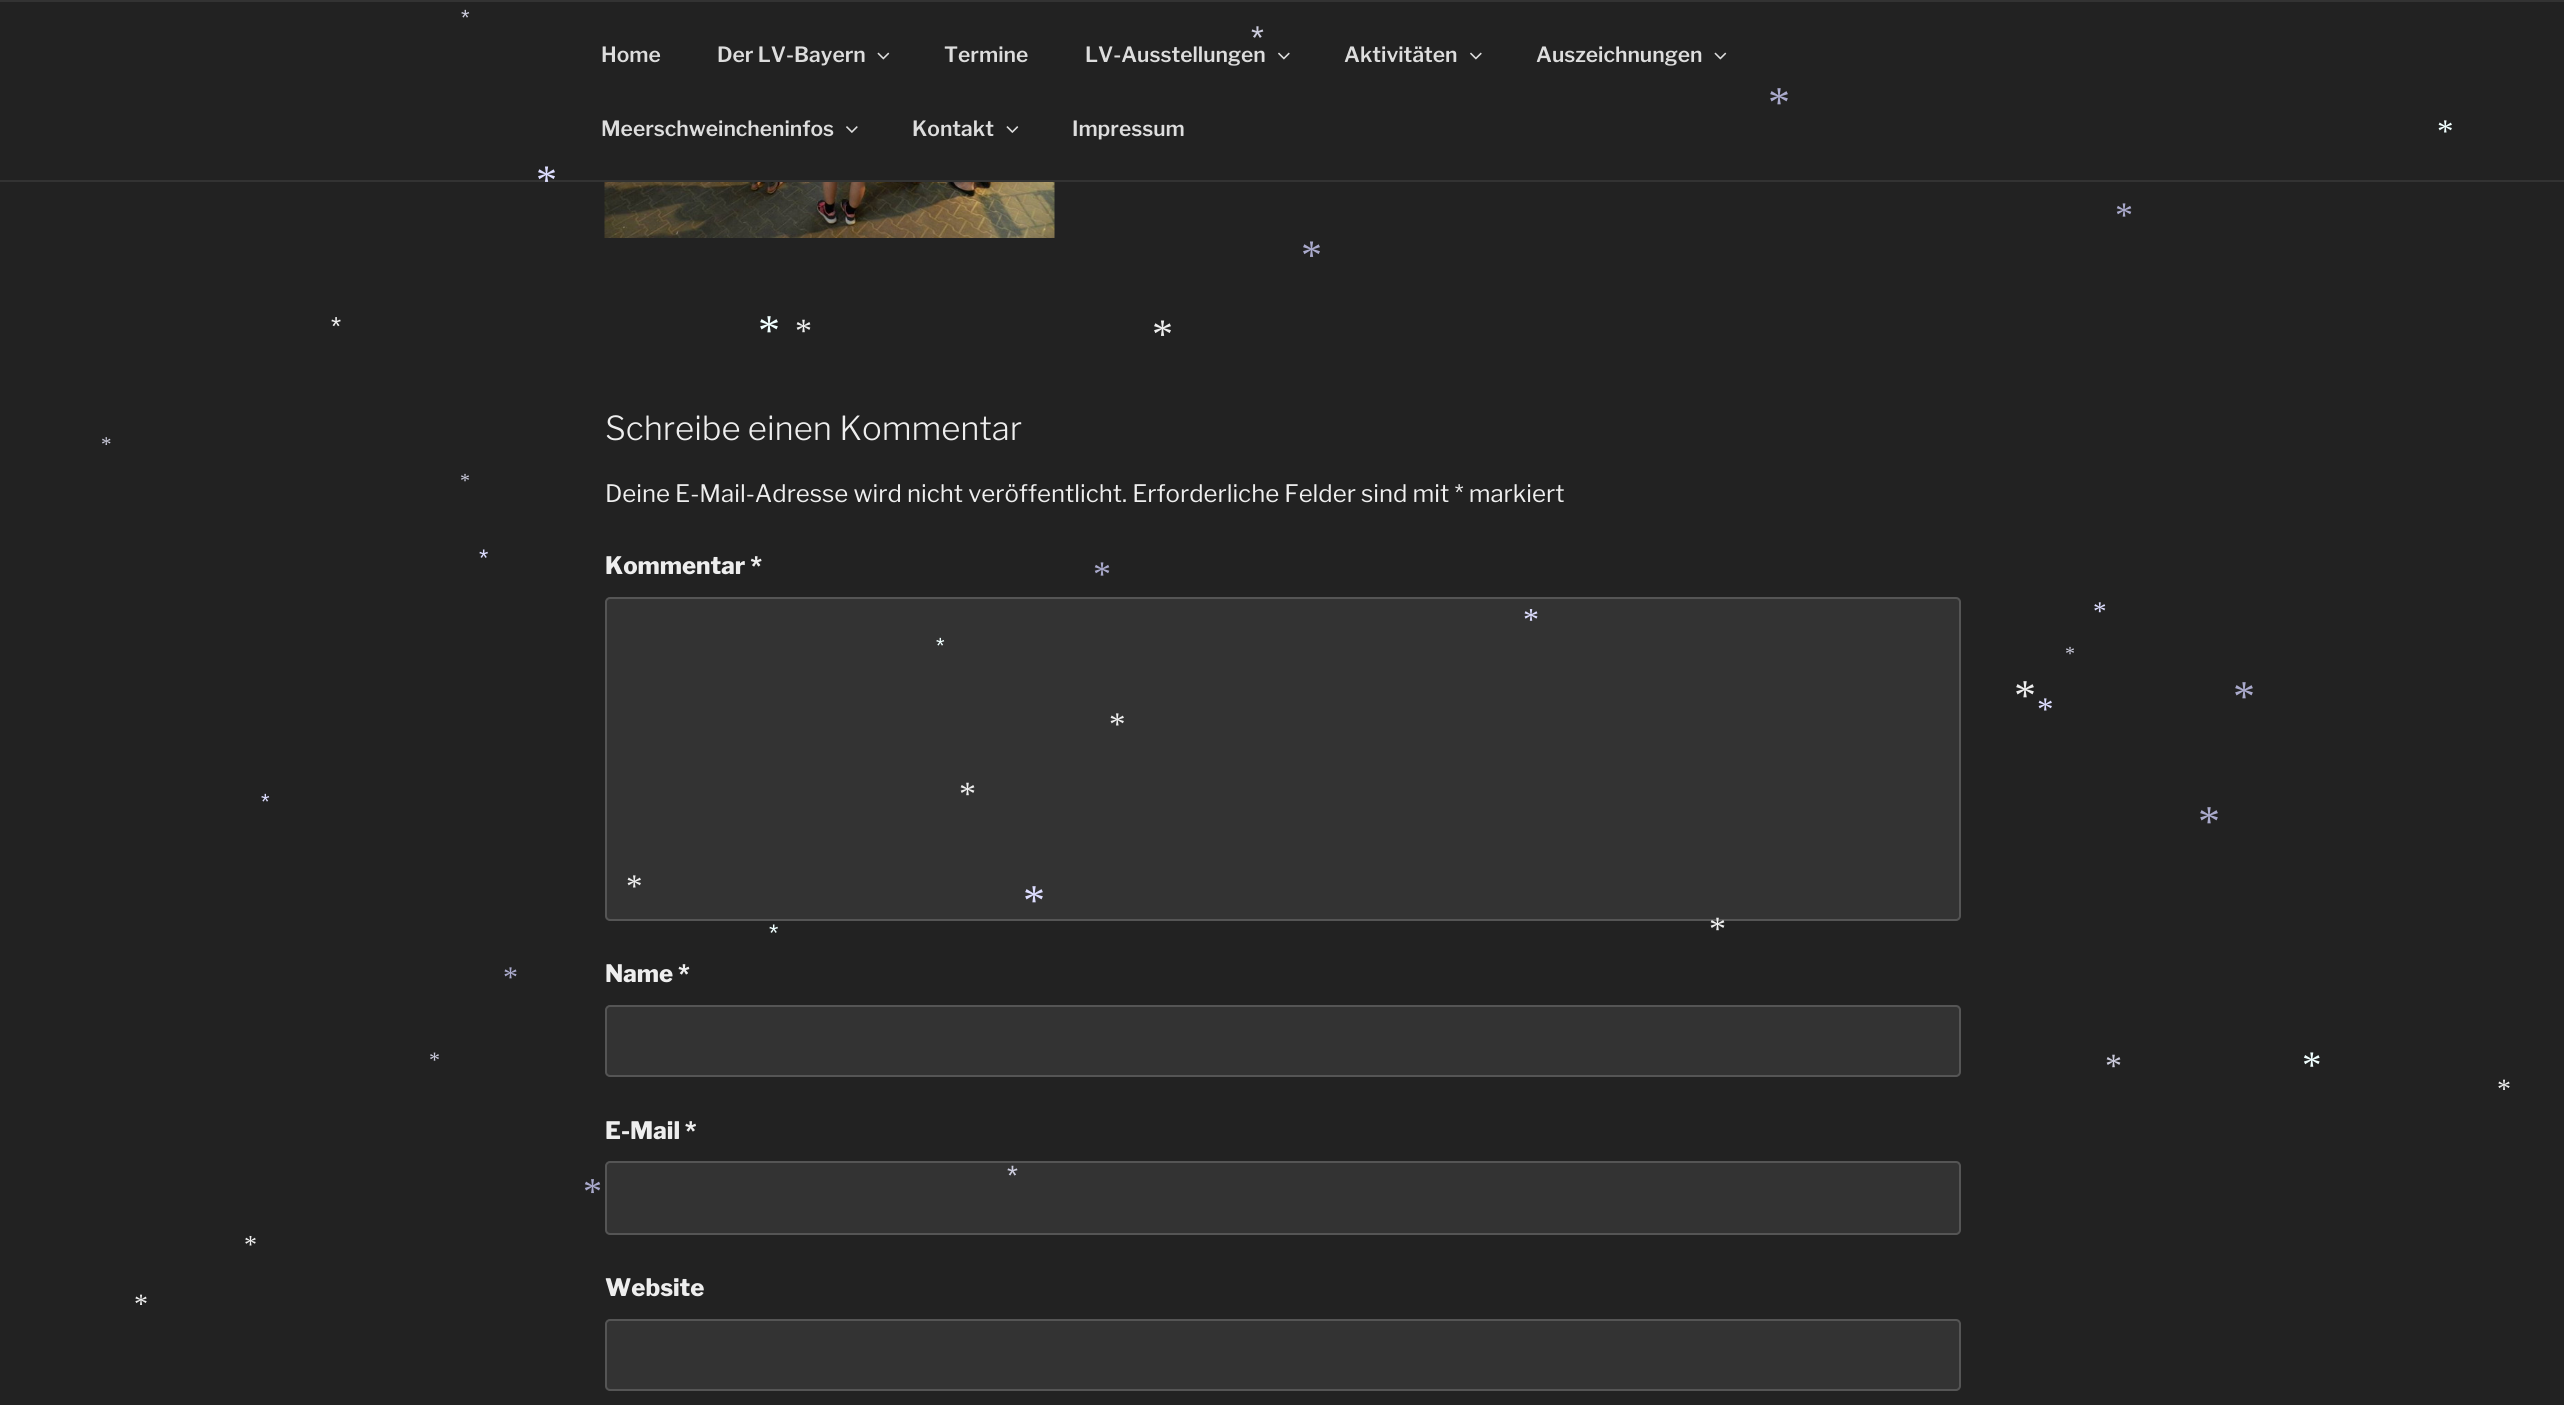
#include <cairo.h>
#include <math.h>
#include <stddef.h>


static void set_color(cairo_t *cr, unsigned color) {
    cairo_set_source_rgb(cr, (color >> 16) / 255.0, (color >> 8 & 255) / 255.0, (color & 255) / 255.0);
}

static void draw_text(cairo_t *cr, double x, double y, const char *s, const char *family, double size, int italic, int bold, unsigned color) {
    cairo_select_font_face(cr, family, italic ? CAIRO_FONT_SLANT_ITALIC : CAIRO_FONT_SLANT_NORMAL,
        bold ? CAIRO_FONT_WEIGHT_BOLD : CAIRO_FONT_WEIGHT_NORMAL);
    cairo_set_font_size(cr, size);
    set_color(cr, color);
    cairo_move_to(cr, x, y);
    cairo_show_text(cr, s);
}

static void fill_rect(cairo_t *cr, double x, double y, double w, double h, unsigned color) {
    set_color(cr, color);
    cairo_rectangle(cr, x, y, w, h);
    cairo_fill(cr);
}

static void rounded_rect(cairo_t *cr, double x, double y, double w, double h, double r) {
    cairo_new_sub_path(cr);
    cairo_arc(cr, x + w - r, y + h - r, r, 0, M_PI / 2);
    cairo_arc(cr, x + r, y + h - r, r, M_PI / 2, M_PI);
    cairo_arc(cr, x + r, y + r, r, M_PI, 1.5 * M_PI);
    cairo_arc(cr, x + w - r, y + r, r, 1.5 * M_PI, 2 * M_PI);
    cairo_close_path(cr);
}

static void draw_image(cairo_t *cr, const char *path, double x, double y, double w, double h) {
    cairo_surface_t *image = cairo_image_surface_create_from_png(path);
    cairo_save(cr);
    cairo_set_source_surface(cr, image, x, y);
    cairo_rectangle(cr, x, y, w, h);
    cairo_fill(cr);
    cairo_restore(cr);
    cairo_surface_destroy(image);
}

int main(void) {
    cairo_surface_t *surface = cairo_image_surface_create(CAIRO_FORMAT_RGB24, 2564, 1405);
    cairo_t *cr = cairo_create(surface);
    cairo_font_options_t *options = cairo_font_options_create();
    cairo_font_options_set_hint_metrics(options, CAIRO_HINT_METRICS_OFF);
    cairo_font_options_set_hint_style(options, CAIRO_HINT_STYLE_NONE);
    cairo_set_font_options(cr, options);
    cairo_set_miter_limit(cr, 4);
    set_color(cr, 0x222222);
    cairo_paint(cr);
    draw_text(cr, 461, 25, "*", "Liberation Sans", 22, 0, 0, 0xCCCCDD);
    draw_text(cr, 1251, 49, "*", "Liberation Sans", 33, 0, 0, 0xCCCCDD);
    draw_text(cr, 1768, 117, "*", "Liberation Serif", 44, 0, 0, 0xAAAACC);
    draw_text(cr, 2437, 142, "*", "Liberation Serif", 33, 0, 0, 0xF0FFFF);
    fill_rect(cr, 0, 180, 2564, 2, 0x333333);
    draw_text(cr, 536, 194, "*", "Liberation Serif", 42, 0, 0, 0xDDDDFF);
    draw_text(cr, 2115, 227, "*", "Liberation Serif", 36, 0, 0, 0xAAAACC);
    draw_text(cr, 1301, 269, "*", "Liberation Serif", 42, 0, 0, 0xAAAACC);
    draw_text(cr, 331, 335, "*", "Liberation Sans", 26, 0, 0, 0xEEEEEE);
    draw_text(cr, 758, 345, "*", "Liberation Serif", 44, 0, 0, 0xF0FFFF);
    draw_text(cr, 795, 342, "*", "Liberation Serif", 34, 0, 0, 0xEEEEEE);
    draw_text(cr, 1152, 348, "*", "Liberation Serif", 42, 0, 0, 0xEEEEEE);
    draw_text(cr, 101, 451, "*", "Liberation Serif", 21, 0, 0, 0xCCCCDD);
    draw_text(cr, 460, 487, "*", "Liberation Serif", 20, 0, 0, 0xCCCCDD);
    draw_text(cr, 479, 566, "*", "Liberation Sans", 24, 0, 0, 0xDDDDFF);
    draw_text(cr, 1093, 586, "*", "Liberation Serif", 36, 0, 0, 0xAAAACC);
    draw_text(cr, 2093, 620, "*", "Liberation Serif", 27, 0, 0, 0xDDDDFF);
    set_color(cr, 0x333333);
    rounded_rect(cr, 606, 598, 1354, 322, 4);
    cairo_fill_preserve(cr);
    set_color(cr, 0x555555);
    cairo_stroke(cr);
    draw_text(cr, 1523, 630, "*", "Liberation Serif", 32, 0, 0, 0xDDDDFF);
    draw_text(cr, 936, 653, "*", "Liberation Sans", 22, 0, 0, 0xF0FFFF);
    draw_text(cr, 2065, 660, "*", "Liberation Serif", 20, 0, 0, 0xCCCCDD);
    draw_text(cr, 2014, 710, "*", "Liberation Serif", 44, 0, 0, 0xEEEEEE);
    draw_text(cr, 2233, 711, "*", "Liberation Serif", 44, 0, 0, 0xAAAACC);
    draw_text(cr, 2037, 720, "*", "Liberation Serif", 33, 0, 0, 0xDDDDFF);
    draw_text(cr, 1109, 735, "*", "Liberation Serif", 33, 0, 0, 0xEEEEEE);
    draw_text(cr, 959, 805, "*", "Liberation Serif", 34, 0, 0, 0xEEEEEE);
    draw_text(cr, 261, 809, "*", "Liberation Sans", 22, 0, 0, 0xDDDDFF);
    draw_text(cr, 2198, 836, "*", "Liberation Serif", 44, 0, 0, 0xAAAACC);
    draw_text(cr, 626, 897, "*", "Liberation Serif", 33, 0, 0, 0xEEEEEE);
    draw_text(cr, 1023, 915, "*", "Liberation Serif", 44, 0, 0, 0xDDDDFF);
    draw_text(cr, 769, 941, "*", "Liberation Sans", 24, 0, 0, 0xF0FFFF);
    draw_text(cr, 1709, 940, "*", "Liberation Serif", 34, 0, 0, 0xEEEEEE);
    draw_text(cr, 503, 987, "*", "Liberation Serif", 30, 0, 0, 0xAAAACC);
    draw_text(cr, 429, 1067, "*", "Liberation Serif", 22, 0, 0, 0xCCCCDD);
    draw_text(cr, 2105, 1077, "*", "Liberation Serif", 34, 0, 0, 0xCCCCDD);
    draw_text(cr, 2302, 1078, "*", "Liberation Serif", 39, 0, 0, 0xF0FFFF);
    draw_text(cr, 2497, 1098, "*", "Liberation Serif", 28, 0, 0, 0xEEEEEE);
    set_color(cr, 0x333333);
    rounded_rect(cr, 606, 1162, 1354, 72, 4);
    cairo_fill_preserve(cr);
    set_color(cr, 0x555555);
    cairo_stroke(cr);
    draw_text(cr, 1007, 1185, "*", "Liberation Sans", 28, 0, 0, 0xCCCCDD);
    draw_text(cr, 583, 1204, "*", "Liberation Serif", 38, 0, 0, 0xAAAACC);
    draw_text(cr, 244, 1253, "*", "Liberation Serif", 26, 0, 0, 0xEEEEEE);
    draw_text(cr, 134, 1313, "*", "Liberation Serif", 28, 0, 0, 0xEEEEEE);
    fill_rect(cr, 0, 0, 2564, 2, 0x333333);
    draw_text(cr, 601, 62, "Home", "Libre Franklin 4 Thin", 21, 0, 0, 0xDDDDDD);
    draw_text(cr, 717, 62, "Der LV-Bayern", "Libre Franklin 4 Thin", 21, 0, 0, 0xDDDDDD);
    draw_image(cr, "assets/img1.png", 877, 52, 13, 8);
    draw_text(cr, 944, 62, "Termine", "Libre Franklin 4 Thin", 21, 0, 0, 0xDDDDDD);
    draw_text(cr, 1085, 62, "LV-Ausstellungen", "Libre Franklin 4 Thin", 21, 0, 0, 0xDDDDDD);
    draw_image(cr, "assets/img2.png", 1278, 52, 12, 8);
    draw_text(cr, 1344, 62, "Aktivitäten", "Libre Franklin 4 Thin", 21, 0, 0, 0xDDDDDD);
    draw_image(cr, "assets/img2.png", 1470, 52, 12, 8);
    draw_text(cr, 1536, 62, "Auszeichnungen", "Libre Franklin 4 Thin", 21, 0, 0, 0xDDDDDD);
    draw_image(cr, "assets/img1.png", 1714, 52, 13, 8);
    draw_text(cr, 601, 136, "Meerschweincheninfos", "Libre Franklin 4 Thin", 21, 0, 0, 0xDDDDDD);
    draw_image(cr, "assets/img3.png", 846, 126, 12, 7);
    draw_text(cr, 912, 136, "Kontakt", "Libre Franklin 4 Thin", 21, 0, 0, 0xDDDDDD);
    draw_image(cr, "assets/img4.png", 1006, 126, 13, 7);
    draw_text(cr, 1072, 136, "Impressum", "Libre Franklin 4 Thin", 21, 0, 0, 0xDDDDDD);
    draw_image(cr, "assets/img5.png", 604, 182, 451, 56);
    draw_text(cr, 605, 440, "Schreibe einen Kommentar", "Libre Franklin Thin", 33, 0, 0, 0xEEEEEE);
    draw_text(cr, 605, 502, "Deine E-Mail-Adresse wird nicht veröffentlicht. Erforderliche Felder sind mit * markiert", "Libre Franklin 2 Thin", 24, 0, 0, 0xEEEEEE);
    draw_text(cr, 605, 574, "Kommentar *", "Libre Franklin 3 Thin", 24, 0, 0, 0xEEEEEE);
    draw_text(cr, 605, 982, "Name *", "Libre Franklin 3 Thin", 24, 0, 0, 0xEEEEEE);
    set_color(cr, 0x333333);
    rounded_rect(cr, 606, 1006, 1354, 70, 4);
    cairo_fill_preserve(cr);
    set_color(cr, 0x555555);
    cairo_stroke(cr);
    draw_text(cr, 605, 1139, "E-Mail *", "Libre Franklin 3 Thin", 24, 0, 0, 0xEEEEEE);
    draw_text(cr, 605, 1296, "Website", "Libre Franklin 3 Thin", 24, 0, 0, 0xEEEEEE);
    set_color(cr, 0x333333);
    rounded_rect(cr, 606, 1320, 1354, 70, 4);
    cairo_fill_preserve(cr);
    set_color(cr, 0x555555);
    cairo_stroke(cr);
    cairo_surface_write_to_png(surface, "output.png");
    cairo_font_options_destroy(options);
    cairo_destroy(cr);
    cairo_surface_destroy(surface);
    return 0;
}
